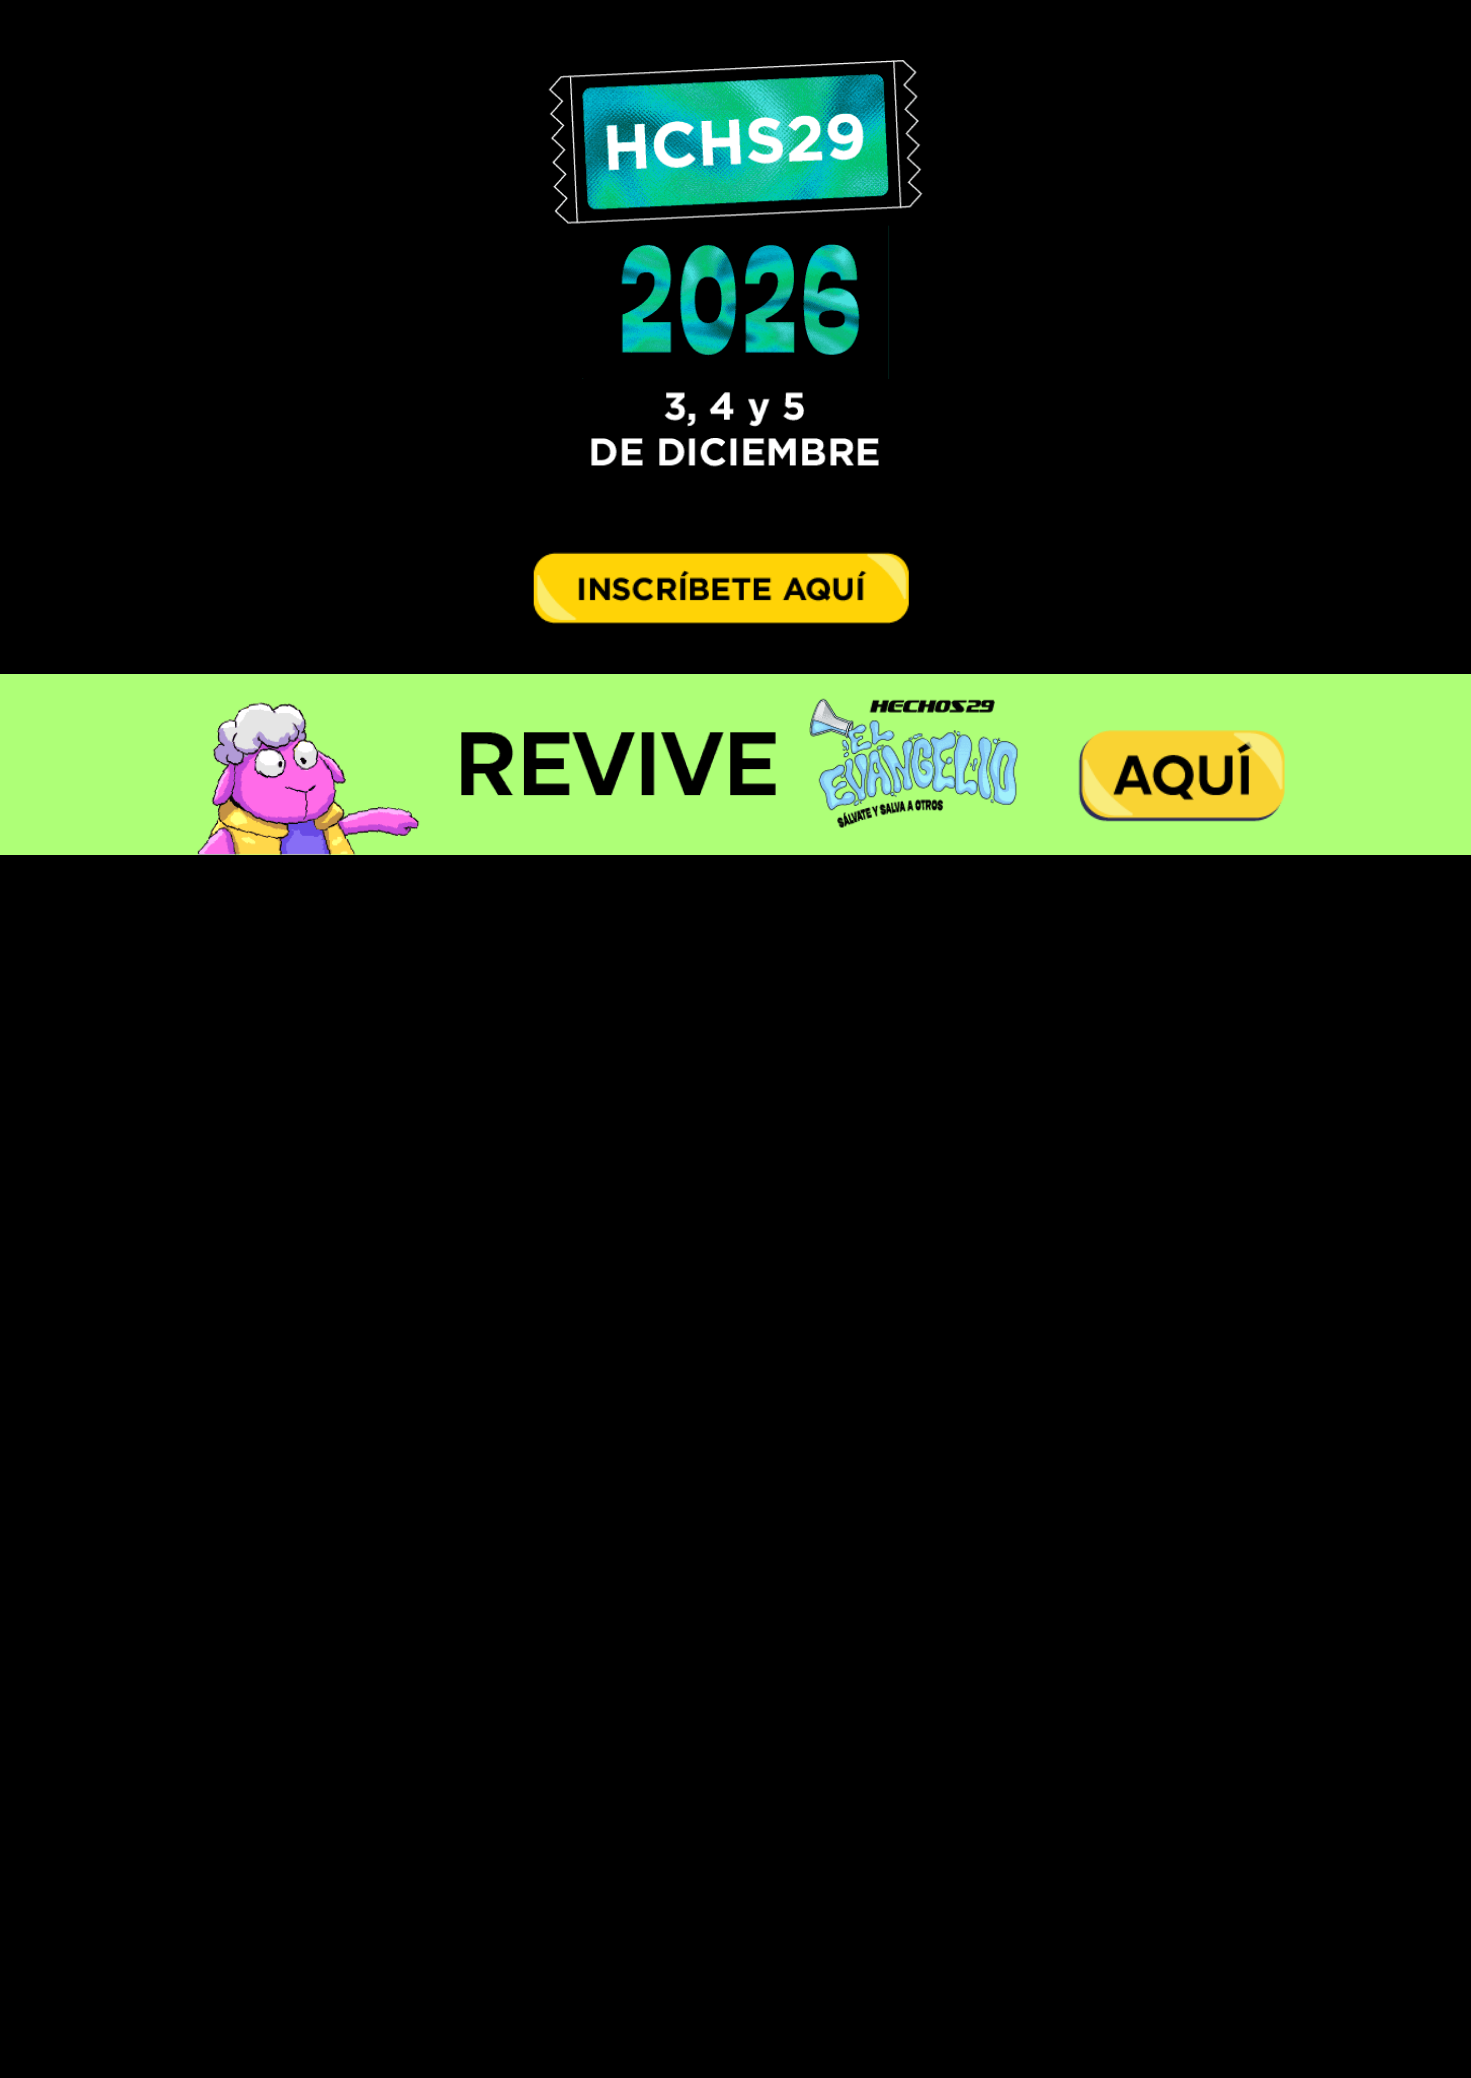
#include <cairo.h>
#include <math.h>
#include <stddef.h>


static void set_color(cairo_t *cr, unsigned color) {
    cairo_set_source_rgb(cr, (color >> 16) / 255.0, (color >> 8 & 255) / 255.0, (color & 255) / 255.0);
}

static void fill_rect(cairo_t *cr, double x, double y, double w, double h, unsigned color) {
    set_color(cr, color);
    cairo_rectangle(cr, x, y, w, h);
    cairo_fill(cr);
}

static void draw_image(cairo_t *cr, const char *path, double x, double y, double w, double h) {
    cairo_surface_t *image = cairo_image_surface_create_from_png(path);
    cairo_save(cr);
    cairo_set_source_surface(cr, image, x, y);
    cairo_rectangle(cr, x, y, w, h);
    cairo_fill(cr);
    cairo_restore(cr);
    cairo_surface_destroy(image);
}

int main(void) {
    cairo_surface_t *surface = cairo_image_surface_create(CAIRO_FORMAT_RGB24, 1471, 2078);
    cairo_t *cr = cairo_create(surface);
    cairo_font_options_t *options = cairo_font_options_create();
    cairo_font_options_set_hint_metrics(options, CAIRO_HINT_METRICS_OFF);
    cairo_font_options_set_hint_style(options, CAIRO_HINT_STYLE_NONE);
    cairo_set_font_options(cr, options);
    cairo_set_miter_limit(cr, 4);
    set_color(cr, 0x000000);
    cairo_paint(cr);
    draw_image(cr, "assets/img1.png", 548, 60, 375, 407);
    draw_image(cr, "assets/img2.png", 533, 552, 376, 72);
    fill_rect(cr, 0, 674, 1471, 181, 0xAEFF77);
    draw_image(cr, "assets/img3.png", 197, 702, 223, 153);
    draw_image(cr, "assets/img4.png", 461, 698, 557, 130);
    draw_image(cr, "assets/img5.png", 1078, 730, 207, 92);
    cairo_surface_write_to_png(surface, "output.png");
    cairo_font_options_destroy(options);
    cairo_destroy(cr);
    cairo_surface_destroy(surface);
    return 0;
}
